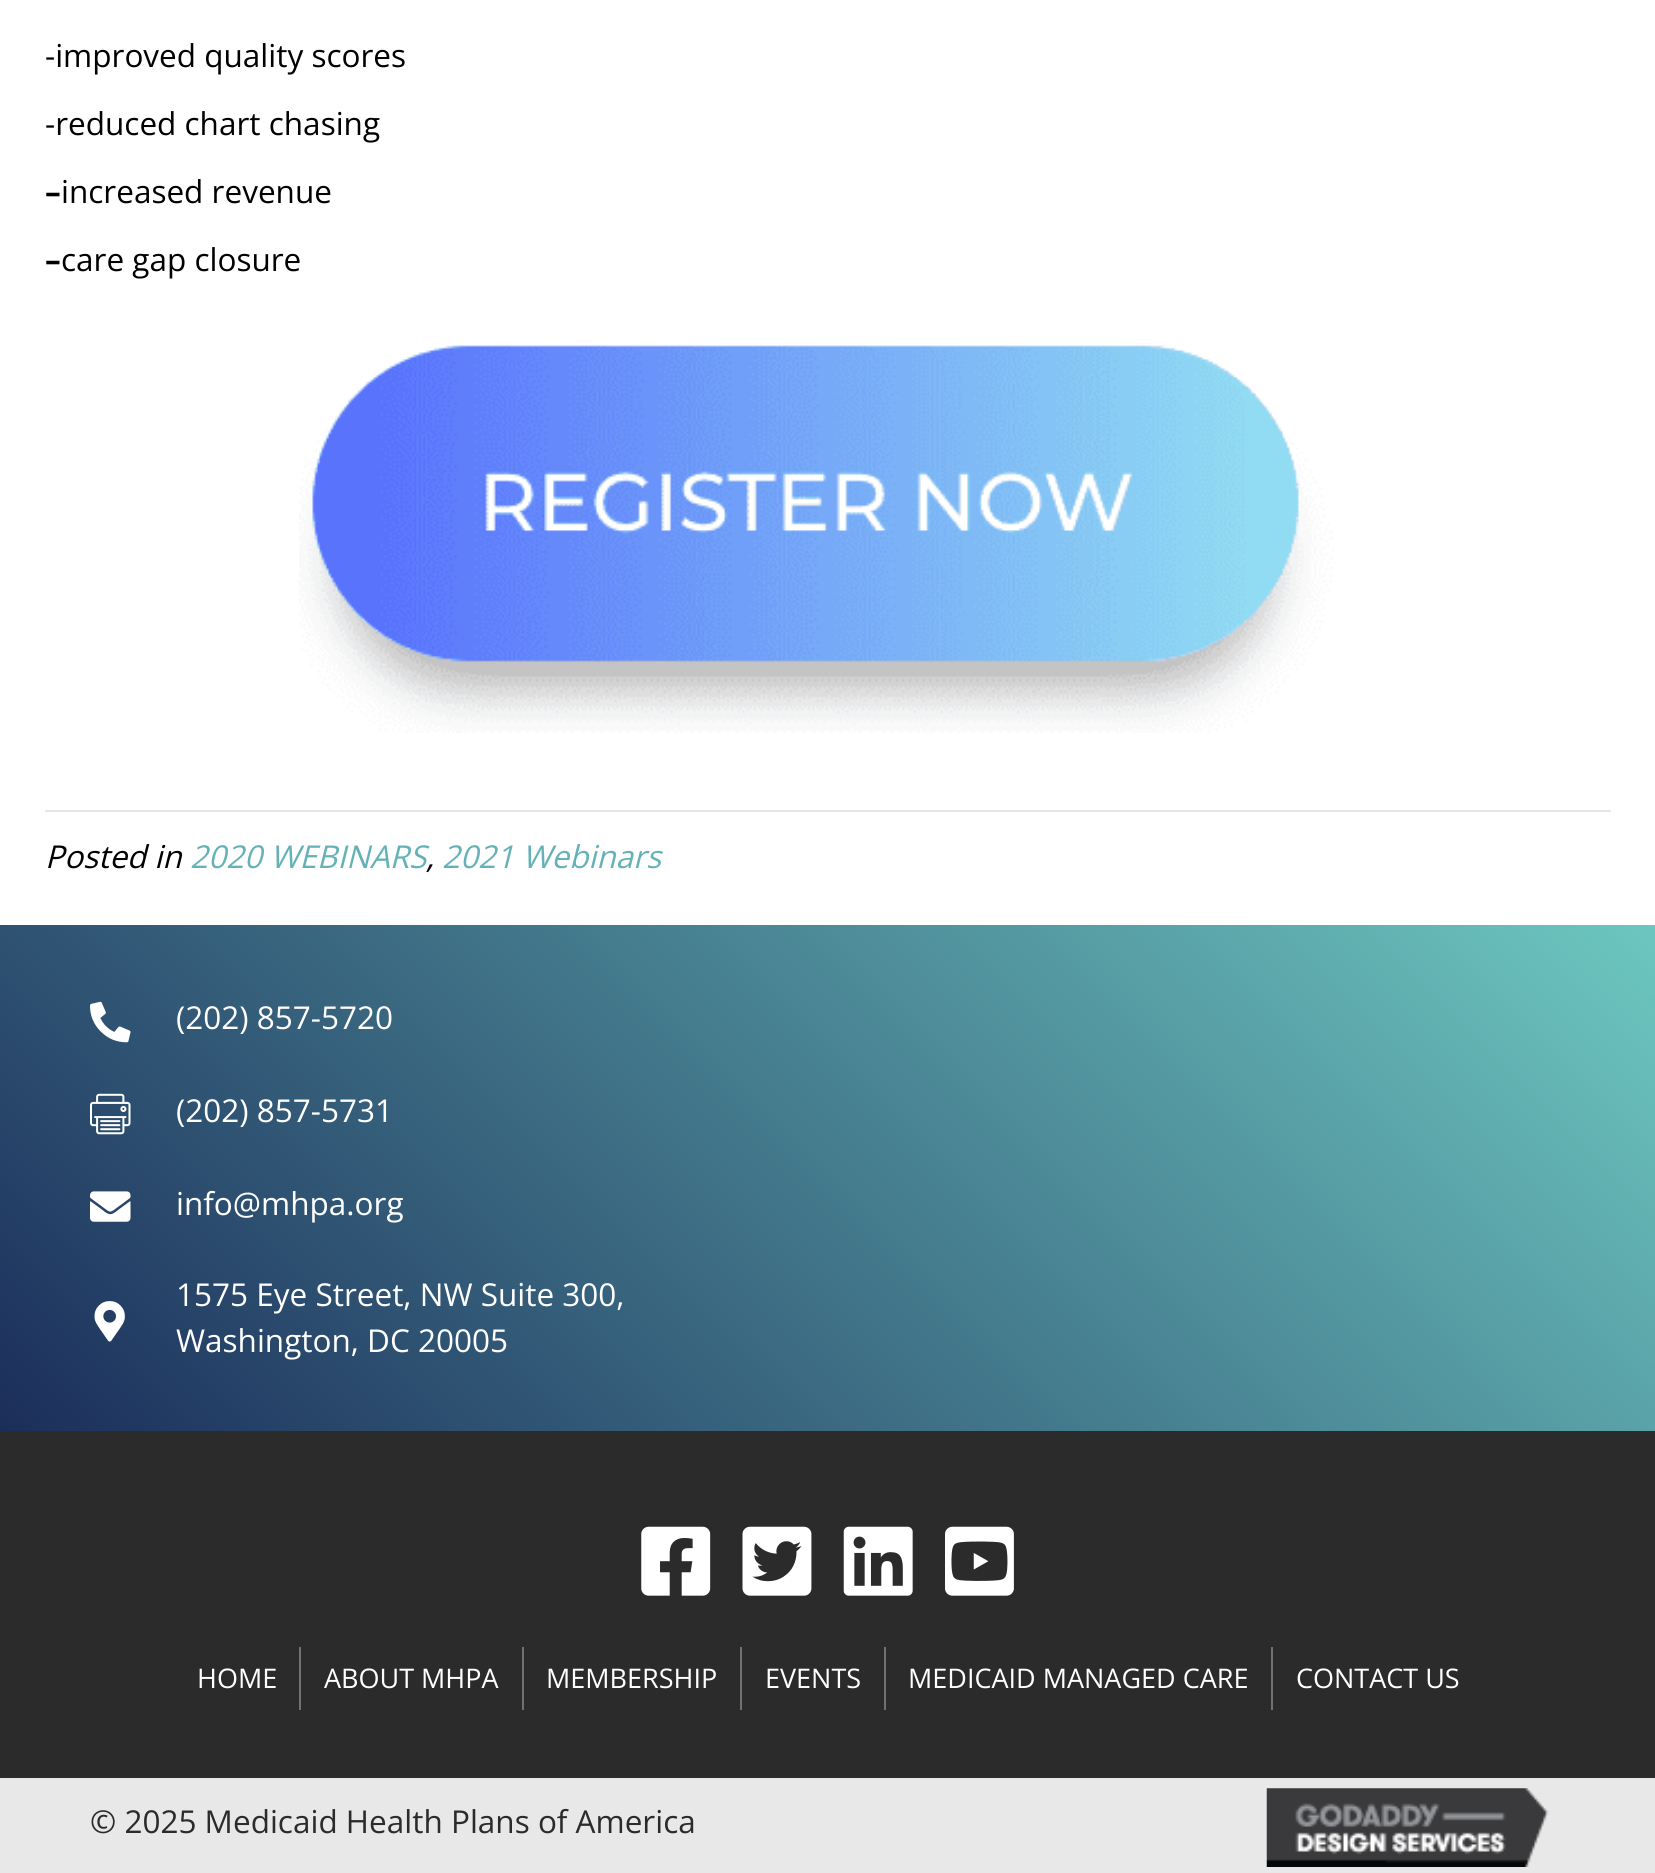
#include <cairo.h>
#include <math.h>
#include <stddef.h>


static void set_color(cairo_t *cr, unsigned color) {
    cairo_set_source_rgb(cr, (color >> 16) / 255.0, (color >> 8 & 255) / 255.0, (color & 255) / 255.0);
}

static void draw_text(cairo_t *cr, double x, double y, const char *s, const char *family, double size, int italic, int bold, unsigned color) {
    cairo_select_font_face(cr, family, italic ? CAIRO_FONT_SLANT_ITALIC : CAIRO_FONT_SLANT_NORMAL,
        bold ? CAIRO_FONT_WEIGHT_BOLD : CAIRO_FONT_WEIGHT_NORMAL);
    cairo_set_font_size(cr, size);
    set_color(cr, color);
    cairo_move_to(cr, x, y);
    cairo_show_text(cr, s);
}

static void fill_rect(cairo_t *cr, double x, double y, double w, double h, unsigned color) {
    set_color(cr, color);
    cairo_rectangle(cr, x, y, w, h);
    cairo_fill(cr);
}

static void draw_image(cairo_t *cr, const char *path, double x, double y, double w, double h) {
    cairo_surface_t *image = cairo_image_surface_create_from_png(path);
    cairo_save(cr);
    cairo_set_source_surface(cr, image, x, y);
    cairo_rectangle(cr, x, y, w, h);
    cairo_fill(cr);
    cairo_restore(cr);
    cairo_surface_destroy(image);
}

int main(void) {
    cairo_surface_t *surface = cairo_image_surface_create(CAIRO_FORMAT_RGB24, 1655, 1873);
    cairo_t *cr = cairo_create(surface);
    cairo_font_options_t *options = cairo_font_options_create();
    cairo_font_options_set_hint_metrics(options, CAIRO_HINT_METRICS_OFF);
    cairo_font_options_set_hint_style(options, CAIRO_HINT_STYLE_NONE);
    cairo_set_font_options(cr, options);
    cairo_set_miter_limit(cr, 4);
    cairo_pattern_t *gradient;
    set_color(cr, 0xFFFFFF);
    cairo_paint(cr);
    draw_text(cr, 45, 67, "-improved quality scores", "Open Sans", 31.5, 0, 0, 0x000000);
    draw_text(cr, 45, 135, "-reduced chart chasing", "Open Sans", 31.5, 0, 0, 0x000000);
    draw_text(cr, 45, 203, "–", "Open Sans", 31.5, 0, 1, 0x000000);
    draw_text(cr, 61, 203, "increased revenue", "Open Sans", 31.5, 0, 0, 0x000000);
    draw_text(cr, 45, 271, "–", "Open Sans", 31.5, 0, 1, 0x000000);
    draw_text(cr, 61, 271, "care gap closure", "Open Sans", 31.5, 0, 0, 0x000000);
    draw_image(cr, "assets/img1.png", 299, 345, 1035, 388);
    fill_rect(cr, 45, 810, 1566, 2, 0xE6E6E6);
    draw_text(cr, 45, 868, "Posted in", "Open Sans", 31.5, 1, 0, 0x000000);
    draw_text(cr, 190, 868, "2020 WEBINARS", "Open Sans", 31.5, 1, 0, 0x64B2B7);
    draw_text(cr, 442, 868, "2021 Webinars", "Open Sans", 31.5, 1, 0, 0x64B2B7);
    draw_text(cr, 426, 868, ",", "Open Sans", 31.5, 1, 0, 0x000000);
    gradient = cairo_pattern_create_linear(287, 1718, 1369, 637);
    cairo_pattern_add_color_stop_rgba(gradient, 0, 0.106, 0.18, 0.353, 1);
    cairo_pattern_add_color_stop_rgba(gradient, 1, 0.427, 0.78, 0.753, 1);
    cairo_set_source(cr, gradient);
    cairo_pattern_destroy(gradient);
    cairo_rectangle(cr, 0, 925, 1655, 506);
    cairo_fill(cr);
    draw_image(cr, "assets/img2.png", 90, 1001, 41, 42);
    draw_text(cr, 176, 1029, "(202) 857-5720", "Open Sans", 31.5, 0, 0, 0xFFFFFF);
    draw_image(cr, "assets/img3.png", 90, 1093, 41, 42);
    draw_text(cr, 176, 1122, "(202) 857-5731", "Open Sans", 31.5, 0, 0, 0xFFFFFF);
    draw_image(cr, "assets/img4.png", 90, 1191, 41, 31);
    draw_text(cr, 176, 1215, "info@mhpa.org", "Open Sans", 31.5, 0, 0, 0xFFFFFF);
    draw_image(cr, "assets/img5.png", 94, 1301, 31, 41);
    draw_text(cr, 176, 1306, "1575 Eye Street, NW Suite 300,", "Open Sans", 31.5, 0, 0, 0xFFFFFF);
    draw_text(cr, 176, 1352, "Washington, DC 20005", "Open Sans", 31.5, 0, 0, 0xFFFFFF);
    fill_rect(cr, 0, 1431, 1655, 347, 0x2B2B2B);
    draw_image(cr, "assets/img6.png", 641, 1526, 70, 70);
    draw_image(cr, "assets/img7.png", 742, 1526, 70, 70);
    draw_image(cr, "assets/img8.png", 843, 1526, 70, 70);
    draw_image(cr, "assets/img9.png", 945, 1526, 69, 70);
    draw_text(cr, 197, 1688, "HOME", "Open Sans", 27, 0, 0, 0xFFFFFF);
    fill_rect(cr, 299, 1647, 2, 63, 0x717171);
    draw_text(cr, 324, 1688, "ABOUT MHPA", "Open Sans", 27, 0, 0, 0xFFFFFF);
    fill_rect(cr, 522, 1647, 2, 63, 0x717171);
    draw_text(cr, 546, 1688, "MEMBERSHIP", "Open Sans", 27, 0, 0, 0xFFFFFF);
    fill_rect(cr, 740, 1647, 2, 63, 0x717171);
    draw_text(cr, 765, 1688, "EVENTS", "Open Sans", 27, 0, 0, 0xFFFFFF);
    fill_rect(cr, 884, 1647, 2, 63, 0x717171);
    draw_text(cr, 908, 1688, "MEDICAID MANAGED CARE", "Open Sans", 27, 0, 0, 0xFFFFFF);
    fill_rect(cr, 1271, 1647, 2, 63, 0x717171);
    draw_text(cr, 1296, 1688, "CONTACT US", "Open Sans", 27, 0, 0, 0xFFFFFF);
    fill_rect(cr, 0, 1778, 1655, 95, 0xE8E8E8);
    draw_text(cr, 90, 1833, "© 2025 Medicaid Health Plans of America", "Open Sans", 31.5, 0, 0, 0x2B2B2B);
    draw_image(cr, "assets/img10.png", 1266, 1788, 283, 79);
    cairo_surface_write_to_png(surface, "output.png");
    cairo_font_options_destroy(options);
    cairo_destroy(cr);
    cairo_surface_destroy(surface);
    return 0;
}
